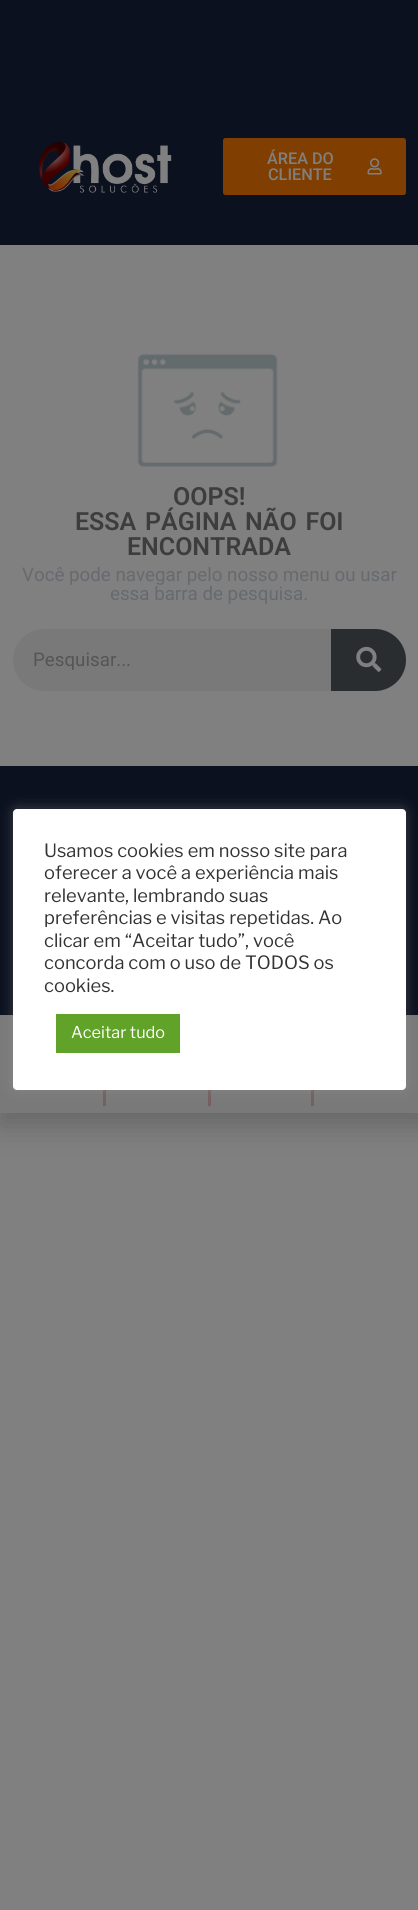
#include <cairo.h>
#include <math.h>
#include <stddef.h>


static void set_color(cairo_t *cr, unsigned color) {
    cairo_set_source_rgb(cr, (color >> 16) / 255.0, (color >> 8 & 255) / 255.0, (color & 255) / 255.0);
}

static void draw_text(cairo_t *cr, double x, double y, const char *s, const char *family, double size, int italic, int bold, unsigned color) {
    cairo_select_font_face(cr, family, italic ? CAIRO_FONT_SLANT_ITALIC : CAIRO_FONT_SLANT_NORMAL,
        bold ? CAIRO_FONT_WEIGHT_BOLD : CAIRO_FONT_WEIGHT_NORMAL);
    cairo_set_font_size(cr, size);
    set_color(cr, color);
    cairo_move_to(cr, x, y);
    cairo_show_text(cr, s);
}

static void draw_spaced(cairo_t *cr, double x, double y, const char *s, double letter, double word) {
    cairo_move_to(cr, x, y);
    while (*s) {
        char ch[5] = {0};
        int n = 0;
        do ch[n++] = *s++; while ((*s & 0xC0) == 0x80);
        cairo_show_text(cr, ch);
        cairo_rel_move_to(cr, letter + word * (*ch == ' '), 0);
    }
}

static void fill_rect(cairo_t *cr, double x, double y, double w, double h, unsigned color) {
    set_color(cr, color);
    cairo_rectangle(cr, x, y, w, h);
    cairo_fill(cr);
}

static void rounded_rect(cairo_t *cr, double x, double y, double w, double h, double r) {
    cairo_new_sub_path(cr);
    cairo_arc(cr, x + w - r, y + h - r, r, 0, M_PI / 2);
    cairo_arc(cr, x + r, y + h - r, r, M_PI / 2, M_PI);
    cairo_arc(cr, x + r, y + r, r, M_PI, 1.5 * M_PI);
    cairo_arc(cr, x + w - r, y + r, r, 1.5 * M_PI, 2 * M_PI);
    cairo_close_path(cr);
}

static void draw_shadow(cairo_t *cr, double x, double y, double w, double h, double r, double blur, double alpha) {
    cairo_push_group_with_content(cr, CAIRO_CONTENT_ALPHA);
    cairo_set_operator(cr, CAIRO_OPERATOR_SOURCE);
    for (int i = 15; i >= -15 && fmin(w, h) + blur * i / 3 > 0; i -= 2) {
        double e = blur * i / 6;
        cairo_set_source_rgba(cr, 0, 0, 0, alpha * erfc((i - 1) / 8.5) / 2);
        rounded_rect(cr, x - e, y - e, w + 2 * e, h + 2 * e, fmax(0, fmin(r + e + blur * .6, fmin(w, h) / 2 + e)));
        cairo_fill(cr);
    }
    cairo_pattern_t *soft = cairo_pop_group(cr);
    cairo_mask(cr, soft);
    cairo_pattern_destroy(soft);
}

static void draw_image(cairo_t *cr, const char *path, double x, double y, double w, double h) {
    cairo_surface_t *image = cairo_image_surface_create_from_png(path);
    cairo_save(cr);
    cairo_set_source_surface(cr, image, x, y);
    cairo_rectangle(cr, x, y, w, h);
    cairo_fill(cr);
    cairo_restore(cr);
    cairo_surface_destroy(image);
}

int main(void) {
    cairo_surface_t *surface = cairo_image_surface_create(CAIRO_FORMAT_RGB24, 418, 1910);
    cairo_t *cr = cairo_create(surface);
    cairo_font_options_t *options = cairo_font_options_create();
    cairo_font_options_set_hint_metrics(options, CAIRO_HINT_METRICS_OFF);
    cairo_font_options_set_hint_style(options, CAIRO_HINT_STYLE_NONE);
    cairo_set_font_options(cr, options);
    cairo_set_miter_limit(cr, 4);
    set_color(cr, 0x808080);
    cairo_paint(cr);
    fill_rect(cr, 0, 0, 418, 245, 0x0C111F);
    draw_image(cr, "assets/img1.png", 38, 141, 134, 52);
    set_color(cr, 0x803F00);
    rounded_rect(cr, 223, 138, 183, 57, 2.5);
    cairo_fill(cr);
    draw_text(cr, 267, 164, "ÁREA DO", "Roboto Medium", 16.25, 0, 0, 0x808080);
    draw_text(cr, 268, 180, "CLIENTE", "Roboto Medium", 16.25, 0, 0, 0x808080);
    draw_image(cr, "assets/img2.png", 367, 158, 15, 17);
    draw_image(cr, "assets/img3.png", 137, 354, 141, 113);
    draw_text(cr, 173, 505, "OOPS!", "Roboto SemiBold", 25, 0, 0, 0x3D3D3D);
    draw_spaced(cr, 75, 530, "ESSA PÁGINA NÃO FOI", 0, 2.5);
    draw_text(cr, 127, 555, "ENCONTRADA", "Roboto SemiBold", 25, 0, 0, 0x3D3D3D);
    draw_text(cr, 22, 581, "Você pode navegar pelo nosso menu ou usar", "Roboto", 18.75, 0, 0, 0x666A6E);
    draw_text(cr, 110, 600, "essa barra de pesquisa.", "Roboto", 18.75, 0, 0, 0x666A6E);
    set_color(cr, 0x79797A);
    rounded_rect(cr, 13, 629, 393, 62, 31);
    cairo_fill(cr);
    draw_text(cr, 33, 666, "Pesquisar...", "Roboto", 18.75, 0, 0, 0x555555);
    set_color(cr, 0x2A2D30);
    cairo_new_path(cr);
    cairo_move_to(cr, 331, 629);
    cairo_line_to(cr, 375, 629);
    cairo_curve_to(cr, 392, 629, 406, 643, 406, 660);
    cairo_curve_to(cr, 406, 677, 392, 691, 375, 691);
    cairo_line_to(cr, 331, 691);
    cairo_close_path(cr);
    cairo_fill(cr);
    draw_image(cr, "assets/img4.png", 356, 646, 26, 26);
    set_color(cr, 0x000000);
    draw_shadow(cr, -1, 1021, 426, 105, 0, 14.5, 0.2);
    fill_rect(cr, 0, 766, 418, 249, 0x0C111F);
    fill_rect(cr, 0, 1016, 418, 97, 0x797979);
    fill_rect(cr, 103, 1090, 3, 16, 0x755F5F);
    fill_rect(cr, 208, 1090, 3, 16, 0x755F5F);
    fill_rect(cr, 311, 1090, 3, 16, 0x755F5F);
    set_color(cr, 0xACABAB);
    draw_shadow(cr, 13, 808, 393, 281, 4, 6, 0.3);
    set_color(cr, 0xFFFFFF);
    rounded_rect(cr, 13, 809, 393, 281, 4);
    cairo_fill(cr);
    draw_text(cr, 44, 857, "Usamos cookies em nosso site para", "Libre Franklin Thin", 18.3, 0, 0, 0x333333);
    draw_text(cr, 44, 879, "oferecer a você a experiência mais", "Libre Franklin Thin", 18.3, 0, 0, 0x333333);
    draw_text(cr, 44, 902, "relevante, lembrando suas", "Libre Franklin Thin", 18.3, 0, 0, 0x333333);
    draw_text(cr, 44, 924, "preferências e visitas repetidas. Ao", "Libre Franklin Thin", 18.3, 0, 0, 0x333333);
    draw_text(cr, 44, 947, "clicar em “Aceitar tudo”, você", "Libre Franklin Thin", 18.3, 0, 0, 0x333333);
    draw_text(cr, 44, 969, "concorda com o uso de TODOS os", "Libre Franklin Thin", 18.3, 0, 0, 0x333333);
    draw_text(cr, 44, 992, "cookies.", "Libre Franklin Thin", 18.3, 0, 0, 0x333333);
    fill_rect(cr, 56, 1014, 124, 39, 0x61A229);
    draw_text(cr, 71, 1038, "Aceitar tudo", "Libre Franklin Thin", 16.25, 0, 0, 0xFFFFFF);
    cairo_surface_write_to_png(surface, "output.png");
    cairo_font_options_destroy(options);
    cairo_destroy(cr);
    cairo_surface_destroy(surface);
    return 0;
}
